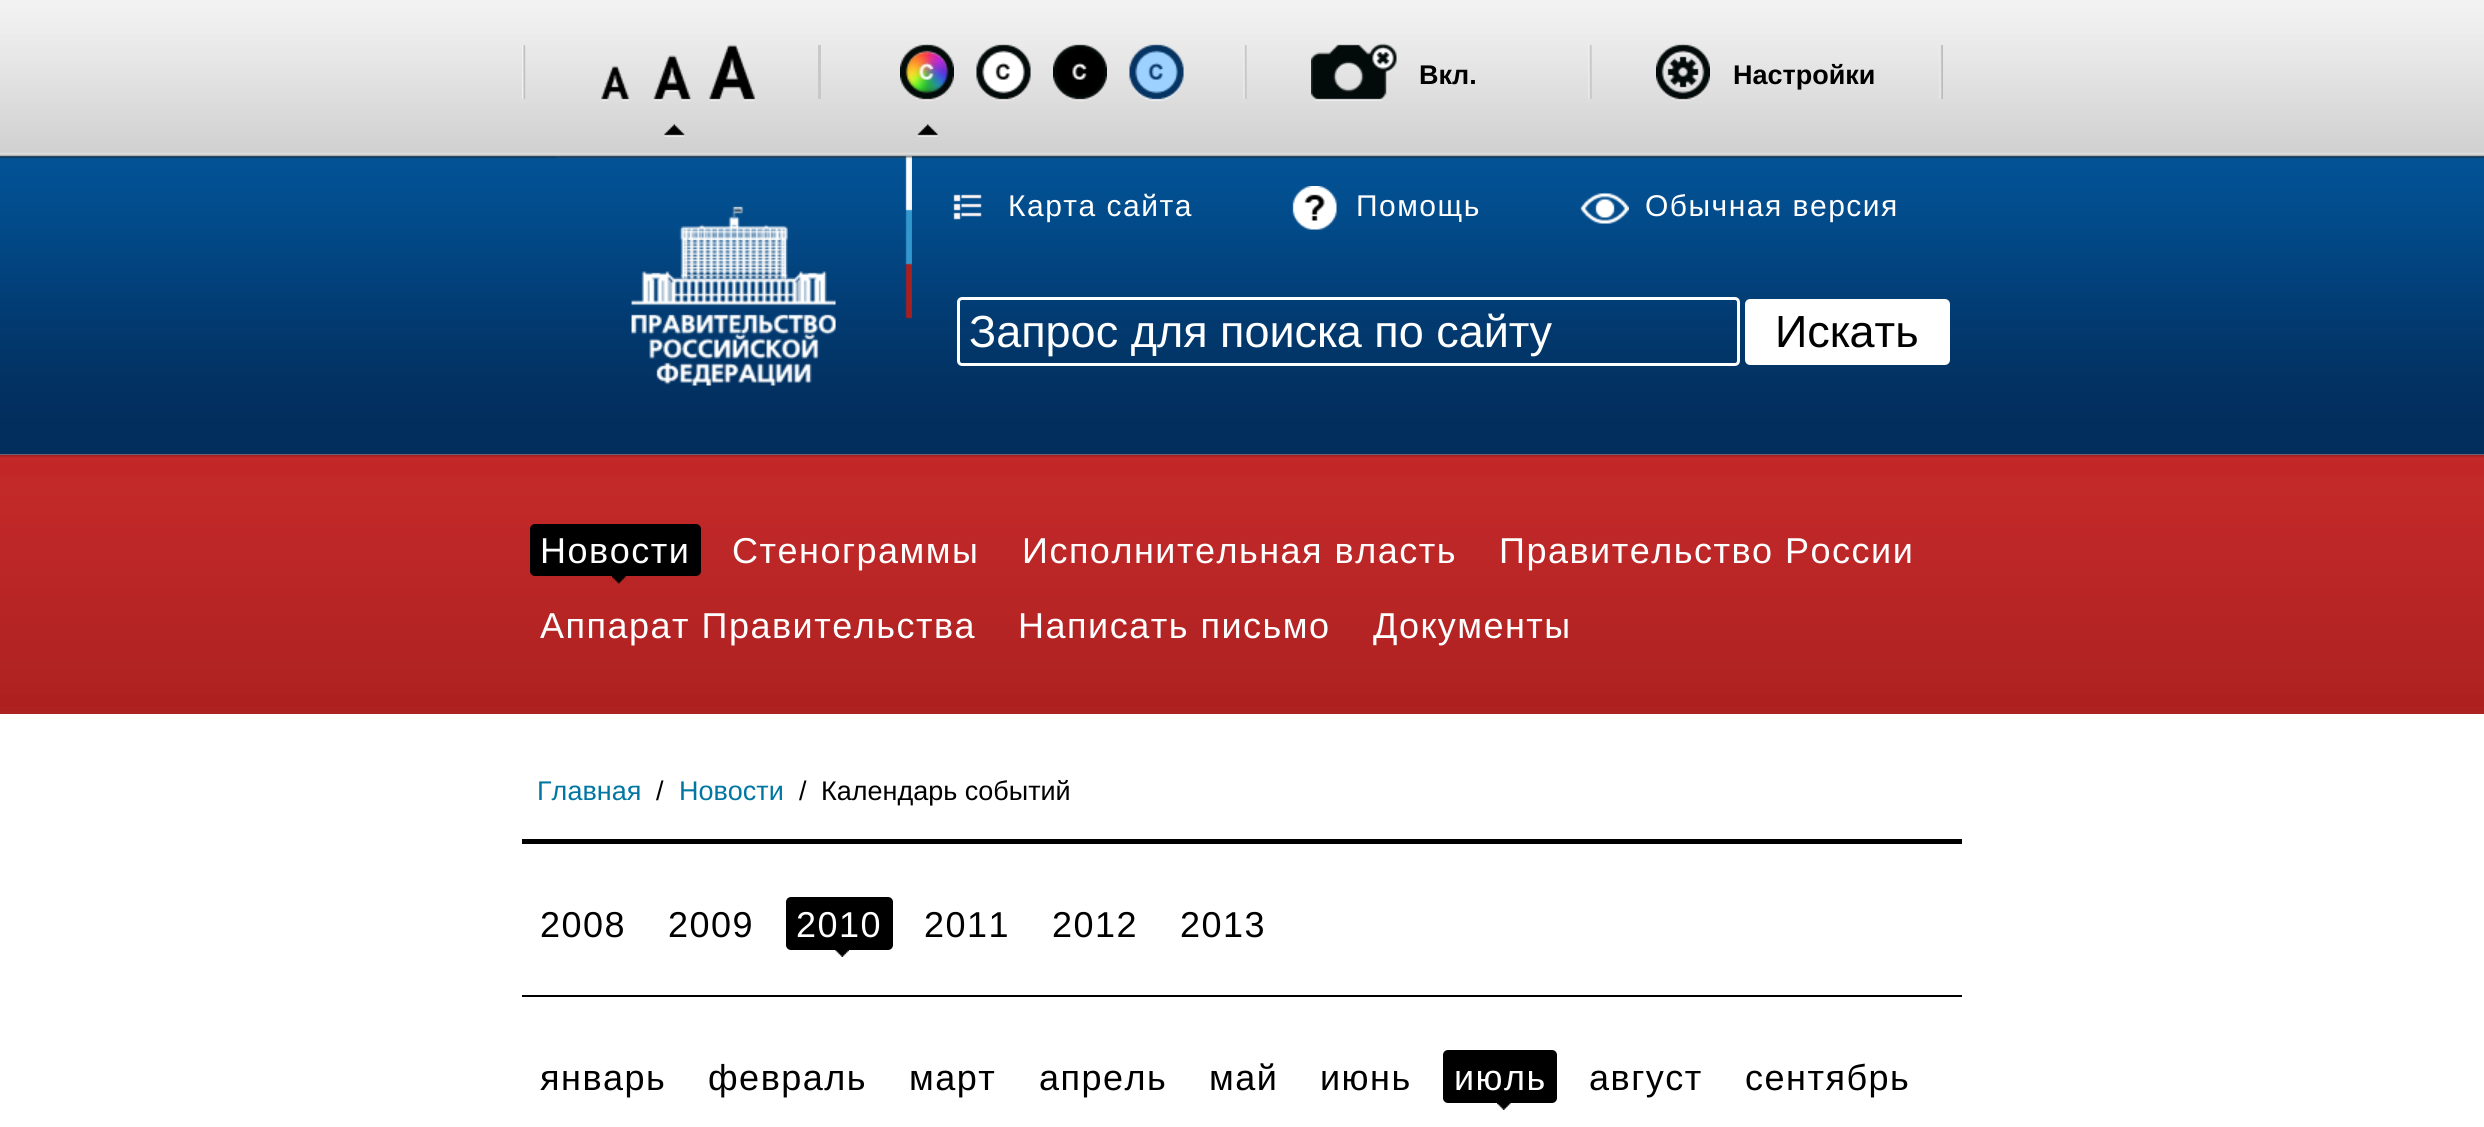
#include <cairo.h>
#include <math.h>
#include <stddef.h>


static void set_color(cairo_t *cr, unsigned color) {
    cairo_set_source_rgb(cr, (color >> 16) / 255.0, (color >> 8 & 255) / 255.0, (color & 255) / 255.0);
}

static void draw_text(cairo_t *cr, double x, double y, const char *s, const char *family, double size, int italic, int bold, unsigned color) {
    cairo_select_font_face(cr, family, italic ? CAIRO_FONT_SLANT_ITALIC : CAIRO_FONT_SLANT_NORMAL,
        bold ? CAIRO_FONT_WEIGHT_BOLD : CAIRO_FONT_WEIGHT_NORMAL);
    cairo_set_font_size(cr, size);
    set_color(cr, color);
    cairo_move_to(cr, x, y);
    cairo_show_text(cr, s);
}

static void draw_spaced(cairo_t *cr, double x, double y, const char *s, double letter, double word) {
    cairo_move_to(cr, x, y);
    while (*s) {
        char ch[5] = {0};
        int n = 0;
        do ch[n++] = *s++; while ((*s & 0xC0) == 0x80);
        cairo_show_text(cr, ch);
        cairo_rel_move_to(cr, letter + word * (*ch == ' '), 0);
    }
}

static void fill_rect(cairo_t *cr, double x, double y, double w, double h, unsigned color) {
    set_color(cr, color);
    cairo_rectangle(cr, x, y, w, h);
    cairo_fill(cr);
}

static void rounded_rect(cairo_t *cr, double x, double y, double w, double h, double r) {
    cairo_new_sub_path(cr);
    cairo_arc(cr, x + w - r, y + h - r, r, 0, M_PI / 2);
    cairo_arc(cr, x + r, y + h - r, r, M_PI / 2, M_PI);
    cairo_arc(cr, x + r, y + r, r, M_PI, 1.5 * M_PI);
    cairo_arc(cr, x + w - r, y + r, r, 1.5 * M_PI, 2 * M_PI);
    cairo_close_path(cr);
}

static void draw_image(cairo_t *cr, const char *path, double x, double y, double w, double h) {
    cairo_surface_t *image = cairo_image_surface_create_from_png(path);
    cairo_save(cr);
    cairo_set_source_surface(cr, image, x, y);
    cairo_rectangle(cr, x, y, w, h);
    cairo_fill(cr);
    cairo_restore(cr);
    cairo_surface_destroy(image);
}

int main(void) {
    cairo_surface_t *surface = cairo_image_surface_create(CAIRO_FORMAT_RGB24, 2484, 1127);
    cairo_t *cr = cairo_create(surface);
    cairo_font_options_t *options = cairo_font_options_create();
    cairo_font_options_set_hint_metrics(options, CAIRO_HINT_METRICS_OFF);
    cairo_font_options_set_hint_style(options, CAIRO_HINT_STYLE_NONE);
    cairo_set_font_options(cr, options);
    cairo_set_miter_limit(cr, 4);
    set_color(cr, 0xFFFFFF);
    cairo_paint(cr);
    draw_image(cr, "assets/img21.png", 0, 454, 2484, 260);
    draw_image(cr, "assets/img16.png", 0, 156, 2484, 299);
    draw_image(cr, "assets/img17.png", 556, 156, 356, 230);
    draw_image(cr, "assets/img1.png", 0, 0, 2484, 158);
    draw_image(cr, "assets/img2.png", 522, 44, 4, 56);
    draw_image(cr, "assets/img3.png", 601, 65, 29, 36);
    draw_image(cr, "assets/img4.png", 653, 55, 39, 46);
    draw_image(cr, "assets/img5.png", 664, 124, 21, 13);
    draw_image(cr, "assets/img6.png", 709, 44, 47, 57);
    fill_rect(cr, 818, 45, 3, 54, 0xC8C8C8);
    draw_image(cr, "assets/img7.png", 900, 44, 54, 57);
    draw_image(cr, "assets/img8.png", 917, 124, 21, 13);
    draw_image(cr, "assets/img9.png", 976, 44, 55, 57);
    draw_image(cr, "assets/img10.png", 1053, 44, 54, 57);
    draw_image(cr, "assets/img11.png", 1129, 44, 55, 57);
    draw_image(cr, "assets/img12.png", 1243, 45, 4, 54);
    draw_image(cr, "assets/img13.png", 1311, 43, 86, 58);
    draw_text(cr, 1419, 84, "Вкл.", "Liberation Sans", 27, 0, 1, 0x000000);
    draw_image(cr, "assets/img12.png", 1588, 45, 4, 54);
    draw_image(cr, "assets/img14.png", 1656, 43, 54, 58);
    draw_text(cr, 1733, 84, "Настройки", "Liberation Sans", 27, 0, 1, 0x000000);
    draw_image(cr, "assets/img15.png", 1939, 45, 4, 54);
    draw_image(cr, "assets/img18.png", 953, 194, 29, 26);
    cairo_select_font_face(cr, "Liberation Sans", CAIRO_FONT_SLANT_NORMAL, CAIRO_FONT_WEIGHT_NORMAL);
    cairo_set_font_size(cr, 30);
    set_color(cr, 0xFFFFFF);
    draw_spaced(cr, 1008, 216, "Карта сайта", 1.5, 0);
    draw_image(cr, "assets/img19.png", 1292, 186, 45, 44);
    draw_spaced(cr, 1356, 216, "Помощь", 1.5, 0);
    draw_image(cr, "assets/img20.png", 1580, 192, 49, 32);
    draw_spaced(cr, 1645, 216, "Обычная версия", 1.5, 0);
    rounded_rect(cr, 958.5, 298.5, 780, 66, 3.5);
    cairo_set_line_width(cr, 3);
    cairo_stroke(cr);
    draw_text(cr, 969, 347, "Запрос для поиска по сайту", "Liberation Sans", 45, 0, 0, 0xFFFFFF);
    rounded_rect(cr, 1746.5, 300.5, 202, 63, 3.5);
    cairo_fill_preserve(cr);
    cairo_stroke(cr);
    draw_text(cr, 1775, 347, "Искать", "Liberation Sans", 45, 0, 0, 0x000000);
    draw_image(cr, "assets/img22.png", 612, 576, 14, 8);
    rounded_rect(cr, 530, 524, 171, 52, 5);
    cairo_fill(cr);
    cairo_set_font_size(cr, 36);
    set_color(cr, 0xFFFFFF);
    draw_spaced(cr, 540, 563, "Новости", 1.5, 0);
    draw_spaced(cr, 732, 563, "Стенограммы", 1.5, 0);
    draw_spaced(cr, 1022, 563, "Исполнительная власть", 1.5, 0);
    draw_spaced(cr, 1499, 563, "Правительство России", 1.5, 0);
    draw_spaced(cr, 540, 638, "Аппарат Правительства", 1.5, 0);
    draw_spaced(cr, 1018, 638, "Написать письмо", 1.5, 0);
    draw_spaced(cr, 1373, 638, "Документы", 1.5, 0);
    draw_text(cr, 537, 800, "Главная", "Liberation Sans", 27, 0, 0, 0x0076A3);
    draw_text(cr, 656, 800, "/", "Liberation Sans", 27, 0, 0, 0x000000);
    draw_text(cr, 679, 800, "Новости", "Liberation Sans", 27, 0, 0, 0x0076A3);
    draw_text(cr, 799, 800, "/", "Liberation Sans", 27, 0, 0, 0x000000);
    draw_text(cr, 821, 800, "Календарь событий", "Liberation Sans", 27, 0, 0, 0x000000);
    fill_rect(cr, 522, 839, 1440, 5, 0x000000);
    fill_rect(cr, 522, 995, 1440, 2, 0x000000);
    cairo_set_font_size(cr, 36);
    draw_spaced(cr, 540, 937, "2008", 1.5, 0);
    draw_spaced(cr, 668, 937, "2009", 1.5, 0);
    draw_image(cr, "assets/img23.png", 835, 950, 14, 7);
    rounded_rect(cr, 786, 897, 107, 53, 5);
    cairo_fill(cr);
    set_color(cr, 0xFFFFFF);
    draw_spaced(cr, 796, 937, "2010", 1.5, 0);
    set_color(cr, 0x000000);
    draw_spaced(cr, 924, 937, "2011", 1.5, 0);
    draw_spaced(cr, 1052, 937, "2012", 1.5, 0);
    draw_spaced(cr, 1180, 937, "2013", 1.5, 0);
    draw_spaced(cr, 540, 1090, "январь", 1.5, 0);
    draw_spaced(cr, 708, 1090, "февраль", 1.5, 0);
    draw_spaced(cr, 909, 1090, "март", 1.5, 0);
    draw_spaced(cr, 1039, 1090, "апрель", 1.5, 0);
    draw_spaced(cr, 1209, 1090, "май", 1.5, 0);
    draw_spaced(cr, 1320, 1090, "июнь", 1.5, 0);
    draw_image(cr, "assets/img24.png", 1497, 1103, 14, 7);
    rounded_rect(cr, 1443, 1050, 114, 53, 5);
    cairo_fill(cr);
    set_color(cr, 0xFFFFFF);
    draw_spaced(cr, 1454, 1090, "июль", 1.5, 0);
    set_color(cr, 0x000000);
    draw_spaced(cr, 1589, 1090, "август", 1.5, 0);
    draw_spaced(cr, 1745, 1090, "сентябрь", 1.5, 0);
    cairo_surface_write_to_png(surface, "output.png");
    cairo_font_options_destroy(options);
    cairo_destroy(cr);
    cairo_surface_destroy(surface);
    return 0;
}
